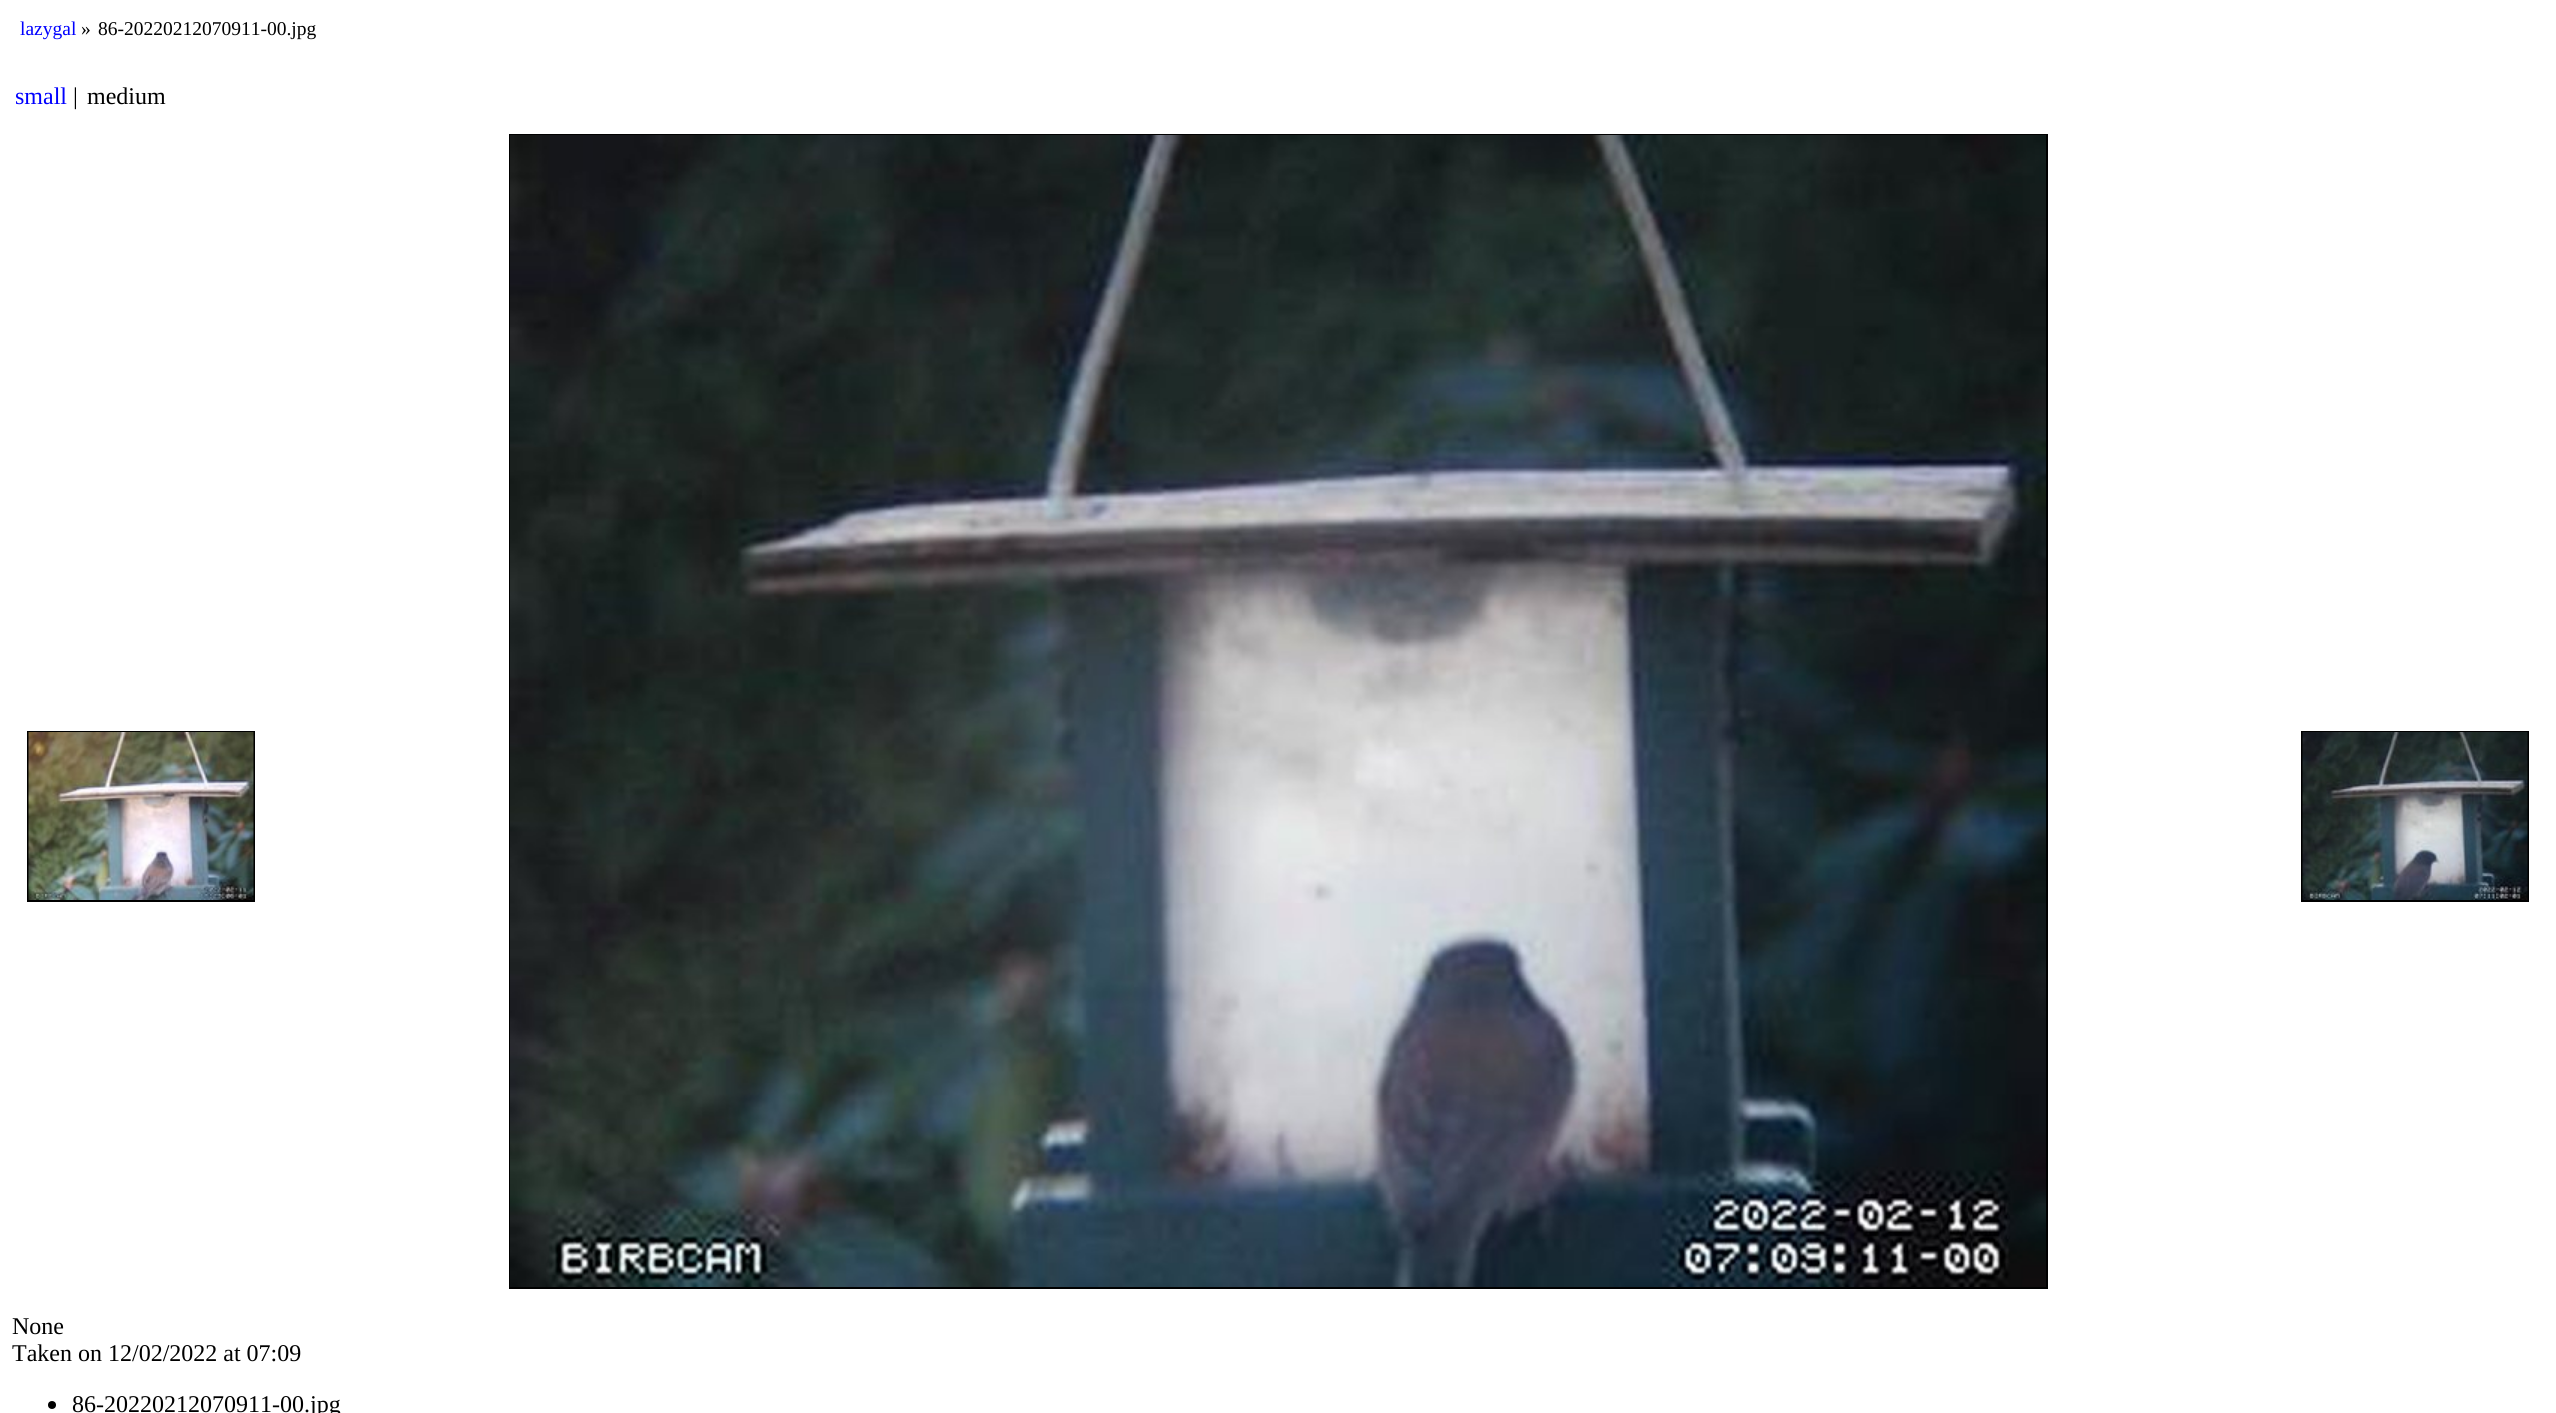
#include <cairo.h>
#include <math.h>
#include <stddef.h>


static void set_color(cairo_t *cr, unsigned color) {
    cairo_set_source_rgb(cr, (color >> 16) / 255.0, (color >> 8 & 255) / 255.0, (color & 255) / 255.0);
}

static void draw_text(cairo_t *cr, double x, double y, const char *s, const char *family, double size, int italic, int bold, unsigned color) {
    cairo_select_font_face(cr, family, italic ? CAIRO_FONT_SLANT_ITALIC : CAIRO_FONT_SLANT_NORMAL,
        bold ? CAIRO_FONT_WEIGHT_BOLD : CAIRO_FONT_WEIGHT_NORMAL);
    cairo_set_font_size(cr, size);
    set_color(cr, color);
    cairo_move_to(cr, x, y);
    cairo_show_text(cr, s);
}

static void draw_image(cairo_t *cr, const char *path, double x, double y, double w, double h) {
    cairo_surface_t *image = cairo_image_surface_create_from_png(path);
    cairo_save(cr);
    cairo_set_source_surface(cr, image, x, y);
    cairo_rectangle(cr, x, y, w, h);
    cairo_fill(cr);
    cairo_restore(cr);
    cairo_surface_destroy(image);
}

int main(void) {
    cairo_surface_t *surface = cairo_image_surface_create(CAIRO_FORMAT_RGB24, 2556, 1413);
    cairo_t *cr = cairo_create(surface);
    cairo_font_options_t *options = cairo_font_options_create();
    cairo_font_options_set_hint_metrics(options, CAIRO_HINT_METRICS_OFF);
    cairo_font_options_set_hint_style(options, CAIRO_HINT_STYLE_NONE);
    cairo_set_font_options(cr, options);
    cairo_set_miter_limit(cr, 4);
    set_color(cr, 0xFFFFFF);
    cairo_paint(cr);
    draw_text(cr, 20, 35, "lazygal", "Liberation Serif", 19.5, 0, 0, 0x0000FF);
    draw_text(cr, 81, 35, "»", "Liberation Serif", 19.5, 0, 0, 0x000000);
    draw_text(cr, 98, 35, "86-20220212070911-00.jpg", "Liberation Serif", 19.5, 0, 0, 0x000000);
    draw_text(cr, 15, 104, "small", "Liberation Serif", 24, 0, 0, 0x0000FF);
    draw_text(cr, 73, 104, "|", "Liberation Serif", 24, 0, 0, 0x000000);
    draw_text(cr, 87, 104, "medium", "Liberation Serif", 24, 0, 0, 0x000000);
    cairo_rectangle(cr, 28, 732, 226, 169);
    cairo_stroke(cr);
    draw_image(cr, "assets/img1.png", 28, 732, 226, 168);
    cairo_rectangle(cr, 2302, 732, 226, 169);
    cairo_stroke(cr);
    draw_image(cr, "assets/img2.png", 2302, 732, 226, 168);
    cairo_rectangle(cr, 510, 135, 1537, 1153);
    cairo_stroke(cr);
    draw_image(cr, "assets/img3.png", 510, 135, 1536, 1152);
    draw_text(cr, 12, 1334, "None", "Liberation Serif", 24, 0, 0, 0x000000);
    draw_text(cr, 12, 1361, "Taken on 12/02/2022 at 07:09", "Liberation Serif", 24, 0, 0, 0x000000);
    cairo_new_path(cr);
    cairo_arc(cr, 52, 1405, 4, 0, 2 * M_PI);
    cairo_fill(cr);
    draw_text(cr, 72, 1412, "86-20220212070911-00.jpg", "Liberation Serif", 24, 0, 0, 0x000000);
    cairo_surface_write_to_png(surface, "output.png");
    cairo_font_options_destroy(options);
    cairo_destroy(cr);
    cairo_surface_destroy(surface);
    return 0;
}
